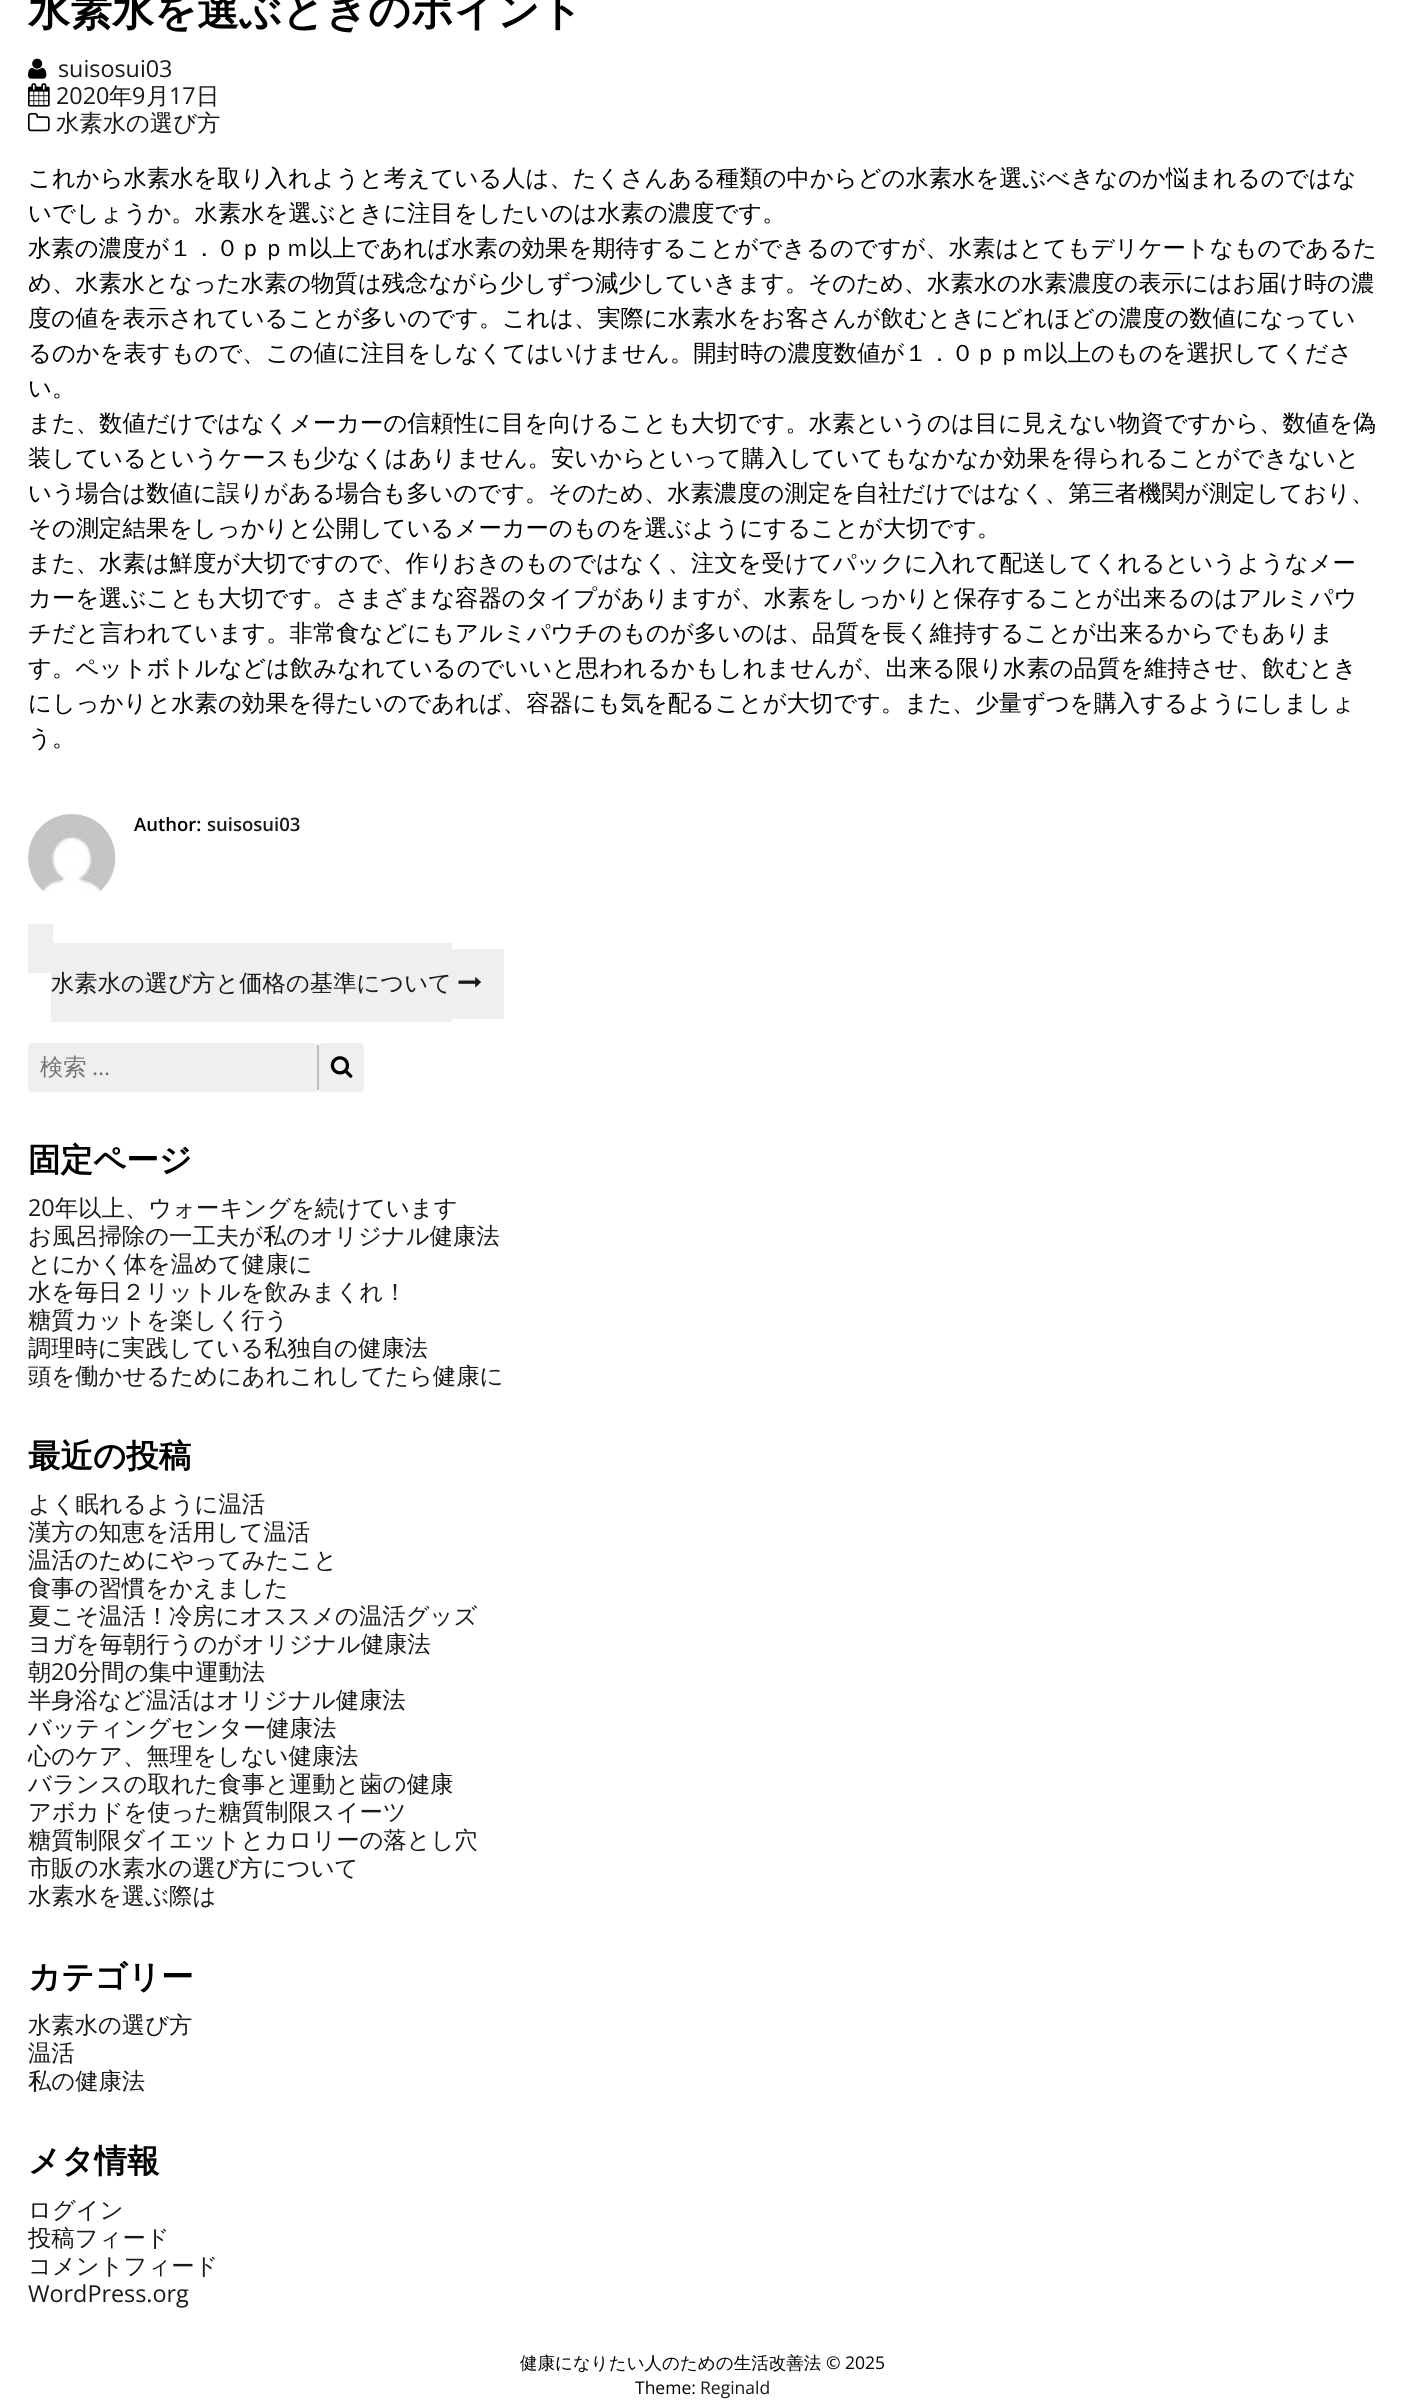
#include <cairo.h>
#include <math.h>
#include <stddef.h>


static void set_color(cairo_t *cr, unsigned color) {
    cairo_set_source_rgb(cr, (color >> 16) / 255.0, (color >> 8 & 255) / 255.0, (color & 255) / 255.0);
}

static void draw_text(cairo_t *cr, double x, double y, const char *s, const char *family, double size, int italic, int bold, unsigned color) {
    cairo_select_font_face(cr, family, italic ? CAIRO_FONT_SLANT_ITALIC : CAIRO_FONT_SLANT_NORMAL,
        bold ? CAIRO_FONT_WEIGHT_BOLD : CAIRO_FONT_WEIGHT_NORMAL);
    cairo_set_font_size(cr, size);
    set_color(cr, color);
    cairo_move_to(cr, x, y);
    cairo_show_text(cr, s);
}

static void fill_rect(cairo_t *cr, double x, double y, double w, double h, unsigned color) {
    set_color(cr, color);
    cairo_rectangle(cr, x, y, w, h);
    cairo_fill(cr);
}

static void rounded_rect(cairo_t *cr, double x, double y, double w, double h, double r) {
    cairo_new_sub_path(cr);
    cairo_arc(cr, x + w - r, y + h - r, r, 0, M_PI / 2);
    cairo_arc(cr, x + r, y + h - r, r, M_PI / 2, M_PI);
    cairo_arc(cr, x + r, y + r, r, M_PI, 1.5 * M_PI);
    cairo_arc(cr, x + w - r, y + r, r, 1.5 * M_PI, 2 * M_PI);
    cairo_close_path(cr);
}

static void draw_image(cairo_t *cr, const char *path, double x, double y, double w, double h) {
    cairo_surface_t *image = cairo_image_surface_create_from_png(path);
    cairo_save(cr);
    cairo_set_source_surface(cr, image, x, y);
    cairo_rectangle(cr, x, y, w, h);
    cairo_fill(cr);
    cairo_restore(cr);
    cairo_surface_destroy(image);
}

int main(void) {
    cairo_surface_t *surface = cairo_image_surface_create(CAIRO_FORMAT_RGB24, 1405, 2403);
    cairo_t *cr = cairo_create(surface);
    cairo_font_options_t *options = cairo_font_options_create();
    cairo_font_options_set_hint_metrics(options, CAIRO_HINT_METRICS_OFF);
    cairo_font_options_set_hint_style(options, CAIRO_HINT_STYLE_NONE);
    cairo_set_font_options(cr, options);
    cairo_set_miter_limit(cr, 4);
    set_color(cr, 0xFFFFFF);
    cairo_paint(cr);
    draw_text(cr, 28, 25, "水素水を選ぶときのポイント", "WenQuanYi Zen Hei", 42, 0, 1, 0x000000);
    draw_image(cr, "assets/img1.png", 28, 58, 19, 21);
    draw_text(cr, 58, 77, "suisosui03", "Open Sans", 23.33, 0, 0, 0x191919);
    draw_image(cr, "assets/img2.png", 28, 83, 22, 24);
    draw_text(cr, 56, 104, "2020", "Open Sans", 23.33, 0, 0, 0x191919);
    draw_text(cr, 109, 104, "年", "WenQuanYi Zen Hei Medium", 23.33, 0, 0, 0x191919);
    draw_text(cr, 132, 104, "9", "Open Sans", 23.33, 0, 0, 0x191919);
    draw_text(cr, 146, 104, "月", "WenQuanYi Zen Hei Medium", 23.33, 0, 0, 0x191919);
    draw_text(cr, 169, 104, "17", "Open Sans", 23.33, 0, 0, 0x191919);
    draw_text(cr, 196, 104, "日", "WenQuanYi Zen Hei Medium", 23.33, 0, 0, 0x191919);
    draw_image(cr, "assets/img3.png", 28, 112, 22, 20);
    draw_text(cr, 56, 131, "水素水の選び方", "WenQuanYi Zen Hei Medium", 23.33, 0, 0, 0x191919);
    draw_text(cr, 28, 186, "これから水素水を取り入れようと考えている人は、たくさんある種類の中からどの水素水を選ぶべきなのか悩まれるのではな", "WenQuanYi Zen Hei Medium", 23.33, 0, 0, 0x000000);
    draw_text(cr, 28, 221, "いでしょうか。水素水を選ぶときに注目をしたいのは水素の濃度です。", "WenQuanYi Zen Hei Medium", 23.33, 0, 0, 0x000000);
    draw_text(cr, 28, 256, "水素の濃度が１．０ｐｐｍ以上であれば水素の効果を期待することができるのですが、水素はとてもデリケートなものであるた", "WenQuanYi Zen Hei Medium", 23.33, 0, 0, 0x000000);
    draw_text(cr, 28, 291, "め、水素水となった水素の物質は残念ながら少しずつ減少していきます。そのため、水素水の水素濃度の表示にはお届け時の濃", "WenQuanYi Zen Hei Medium", 23.33, 0, 0, 0x000000);
    draw_text(cr, 28, 326, "度の値を表示されていることが多いのです。これは、実際に水素水をお客さんが飲むときにどれほどの濃度の数値になってい", "WenQuanYi Zen Hei Medium", 23.33, 0, 0, 0x000000);
    draw_text(cr, 28, 361, "るのかを表すもので、この値に注目をしなくてはいけません。開封時の濃度数値が１．０ｐｐｍ以上のものを選択してくださ", "WenQuanYi Zen Hei Medium", 23.33, 0, 0, 0x000000);
    draw_text(cr, 28, 396, "い。", "WenQuanYi Zen Hei Medium", 23.33, 0, 0, 0x000000);
    draw_text(cr, 28, 431, "また、数値だけではなくメーカーの信頼性に目を向けることも大切です。水素というのは目に見えない物資ですから、数値を偽", "WenQuanYi Zen Hei Medium", 23.33, 0, 0, 0x000000);
    draw_text(cr, 28, 466, "装しているというケースも少なくはありません。安いからといって購入していてもなかなか効果を得られることができないと", "WenQuanYi Zen Hei Medium", 23.33, 0, 0, 0x000000);
    draw_text(cr, 28, 501, "いう場合は数値に誤りがある場合も多いのです。そのため、水素濃度の測定を自社だけではなく、第三者機関が測定しており、", "WenQuanYi Zen Hei Medium", 23.33, 0, 0, 0x000000);
    draw_text(cr, 28, 536, "その測定結果をしっかりと公開しているメーカーのものを選ぶようにすることが大切です。", "WenQuanYi Zen Hei Medium", 23.33, 0, 0, 0x000000);
    draw_text(cr, 28, 571, "また、水素は鮮度が大切ですので、作りおきのものではなく、注文を受けてパックに入れて配送してくれるというようなメー", "WenQuanYi Zen Hei Medium", 23.33, 0, 0, 0x000000);
    draw_text(cr, 28, 606, "カーを選ぶことも大切です。さまざまな容器のタイプがありますが、水素をしっかりと保存することが出来るのはアルミパウ", "WenQuanYi Zen Hei Medium", 23.33, 0, 0, 0x000000);
    draw_text(cr, 28, 641, "チだと言われています。非常食などにもアルミパウチのものが多いのは、品質を長く維持することが出来るからでもありま", "WenQuanYi Zen Hei Medium", 23.33, 0, 0, 0x000000);
    draw_text(cr, 28, 676, "す。ペットボトルなどは飲みなれているのでいいと思われるかもしれませんが、出来る限り水素の品質を維持させ、飲むとき", "WenQuanYi Zen Hei Medium", 23.33, 0, 0, 0x000000);
    draw_text(cr, 28, 711, "にしっかりと水素の効果を得たいのであれば、容器にも気を配ることが大切です。また、少量ずつを購入するようにしましょ", "WenQuanYi Zen Hei Medium", 23.33, 0, 0, 0x000000);
    draw_text(cr, 28, 746, "う。", "WenQuanYi Zen Hei Medium", 23.33, 0, 0, 0x000000);
    draw_image(cr, "assets/img4.png", 28, 814, 88, 82);
    draw_text(cr, 134, 831, "Author:", "Open Sans SemiBold", 18.5, 0, 0, 0x000000);
    draw_text(cr, 207, 831, "suisosui03", "Open Sans SemiBold", 18.5, 0, 0, 0x191919);
    fill_rect(cr, 28, 924, 25, 49, 0xEFEFEF);
    fill_rect(cr, 51, 943, 401, 79, 0xEFEFEF);
    draw_text(cr, 51, 991, "水素水の選び方と価格の基準について", "WenQuanYi Zen Hei Medium", 23.33, 0, 0, 0x191919);
    fill_rect(cr, 452, 949, 52, 70, 0xEFEFEF);
    draw_image(cr, "assets/img5.png", 458, 977, 23, 11);
    rounded_rect(cr, 28, 1043, 291, 49, 4);
    cairo_fill(cr);
    fill_rect(cr, 317, 1045, 2, 45, 0xBDBDBD);
    draw_text(cr, 40, 1075, "検索", "WenQuanYi Zen Hei Medium", 23.33, 0, 0, 0x757575);
    draw_text(cr, 92, 1075, "…", "Open Sans", 23.33, 0, 0, 0x757575);
    set_color(cr, 0xEFEFEF);
    rounded_rect(cr, 319, 1043, 45, 49, 4);
    cairo_fill(cr);
    draw_image(cr, "assets/img6.png", 330, 1056, 23, 22);
    draw_text(cr, 28, 1171, "固定ページ", "WenQuanYi Zen Hei", 32.5, 0, 1, 0x000000);
    draw_text(cr, 28, 1216, "20", "Open Sans", 23.33, 0, 0, 0x191919);
    draw_text(cr, 55, 1216, "年以上、ウォーキングを続けています", "WenQuanYi Zen Hei Medium", 23.33, 0, 0, 0x191919);
    draw_text(cr, 28, 1244, "お風呂掃除の一工夫が私のオリジナル健康法", "WenQuanYi Zen Hei Medium", 23.33, 0, 0, 0x191919);
    draw_text(cr, 28, 1272, "とにかく体を温めて健康に", "WenQuanYi Zen Hei Medium", 23.33, 0, 0, 0x191919);
    draw_text(cr, 28, 1300, "水を毎日２リットルを飲みまくれ！", "WenQuanYi Zen Hei Medium", 23.33, 0, 0, 0x191919);
    draw_text(cr, 28, 1328, "糖質カットを楽しく行う", "WenQuanYi Zen Hei Medium", 23.33, 0, 0, 0x191919);
    draw_text(cr, 28, 1356, "調理時に実践している私独自の健康法", "WenQuanYi Zen Hei Medium", 23.33, 0, 0, 0x191919);
    draw_text(cr, 28, 1384, "頭を働かせるためにあれこれしてたら健康に", "WenQuanYi Zen Hei Medium", 23.33, 0, 0, 0x191919);
    draw_text(cr, 28, 1467, "最近の投稿", "WenQuanYi Zen Hei", 32.5, 0, 1, 0x000000);
    draw_text(cr, 28, 1512, "よく眠れるように温活", "WenQuanYi Zen Hei Medium", 23.33, 0, 0, 0x191919);
    draw_text(cr, 28, 1540, "漢方の知恵を活用して温活", "WenQuanYi Zen Hei Medium", 23.33, 0, 0, 0x191919);
    draw_text(cr, 28, 1568, "温活のためにやってみたこと", "WenQuanYi Zen Hei Medium", 23.33, 0, 0, 0x191919);
    draw_text(cr, 28, 1596, "食事の習慣をかえました", "WenQuanYi Zen Hei Medium", 23.33, 0, 0, 0x191919);
    draw_text(cr, 28, 1624, "夏こそ温活！冷房にオススメの温活グッズ", "WenQuanYi Zen Hei Medium", 23.33, 0, 0, 0x191919);
    draw_text(cr, 28, 1652, "ヨガを毎朝行うのがオリジナル健康法", "WenQuanYi Zen Hei Medium", 23.33, 0, 0, 0x191919);
    draw_text(cr, 28, 1680, "朝", "WenQuanYi Zen Hei Medium", 23.33, 0, 0, 0x191919);
    draw_text(cr, 51, 1680, "20", "Open Sans", 23.33, 0, 0, 0x191919);
    draw_text(cr, 78, 1680, "分間の集中運動法", "WenQuanYi Zen Hei Medium", 23.33, 0, 0, 0x191919);
    draw_text(cr, 28, 1708, "半身浴など温活はオリジナル健康法", "WenQuanYi Zen Hei Medium", 23.33, 0, 0, 0x191919);
    draw_text(cr, 28, 1736, "バッティングセンター健康法", "WenQuanYi Zen Hei Medium", 23.33, 0, 0, 0x191919);
    draw_text(cr, 28, 1764, "心のケア、無理をしない健康法", "WenQuanYi Zen Hei Medium", 23.33, 0, 0, 0x191919);
    draw_text(cr, 28, 1792, "バランスの取れた食事と運動と歯の健康", "WenQuanYi Zen Hei Medium", 23.33, 0, 0, 0x191919);
    draw_text(cr, 28, 1820, "アボカドを使った糖質制限スイーツ", "WenQuanYi Zen Hei Medium", 23.33, 0, 0, 0x191919);
    draw_text(cr, 28, 1848, "糖質制限ダイエットとカロリーの落とし穴", "WenQuanYi Zen Hei Medium", 23.33, 0, 0, 0x191919);
    draw_text(cr, 28, 1876, "市販の水素水の選び方について", "WenQuanYi Zen Hei Medium", 23.33, 0, 0, 0x191919);
    draw_text(cr, 28, 1904, "水素水を選ぶ際は", "WenQuanYi Zen Hei Medium", 23.33, 0, 0, 0x191919);
    draw_text(cr, 28, 1988, "カテゴリー", "WenQuanYi Zen Hei", 32.5, 0, 1, 0x000000);
    draw_text(cr, 28, 2033, "水素水の選び方", "WenQuanYi Zen Hei Medium", 23.33, 0, 0, 0x191919);
    draw_text(cr, 28, 2061, "温活", "WenQuanYi Zen Hei Medium", 23.33, 0, 0, 0x191919);
    draw_text(cr, 28, 2089, "私の健康法", "WenQuanYi Zen Hei Medium", 23.33, 0, 0, 0x191919);
    draw_text(cr, 28, 2172, "メタ情報", "WenQuanYi Zen Hei", 32.5, 0, 1, 0x000000);
    draw_text(cr, 28, 2218, "ログイン", "WenQuanYi Zen Hei Medium", 23.33, 0, 0, 0x191919);
    draw_text(cr, 28, 2246, "投稿フィード", "WenQuanYi Zen Hei Medium", 23.33, 0, 0, 0x191919);
    draw_text(cr, 28, 2274, "コメントフィード", "WenQuanYi Zen Hei Medium", 23.33, 0, 0, 0x191919);
    draw_text(cr, 28, 2302, "WordPress.org", "Open Sans", 23.33, 0, 0, 0x191919);
    draw_text(cr, 520, 2369, "健康になりたい人のための生活改善法", "WenQuanYi Zen Hei Medium", 17.5, 0, 0, 0x000000);
    draw_text(cr, 826, 2369, "© 2025", "Open Sans", 17.5, 0, 0, 0x000000);
    draw_text(cr, 635, 2394, "Theme:", "Open Sans", 17.5, 0, 0, 0x000000);
    draw_text(cr, 700, 2394, "Reginald", "Open Sans", 17.5, 0, 0, 0x191919);
    cairo_surface_write_to_png(surface, "output.png");
    cairo_font_options_destroy(options);
    cairo_destroy(cr);
    cairo_surface_destroy(surface);
    return 0;
}
